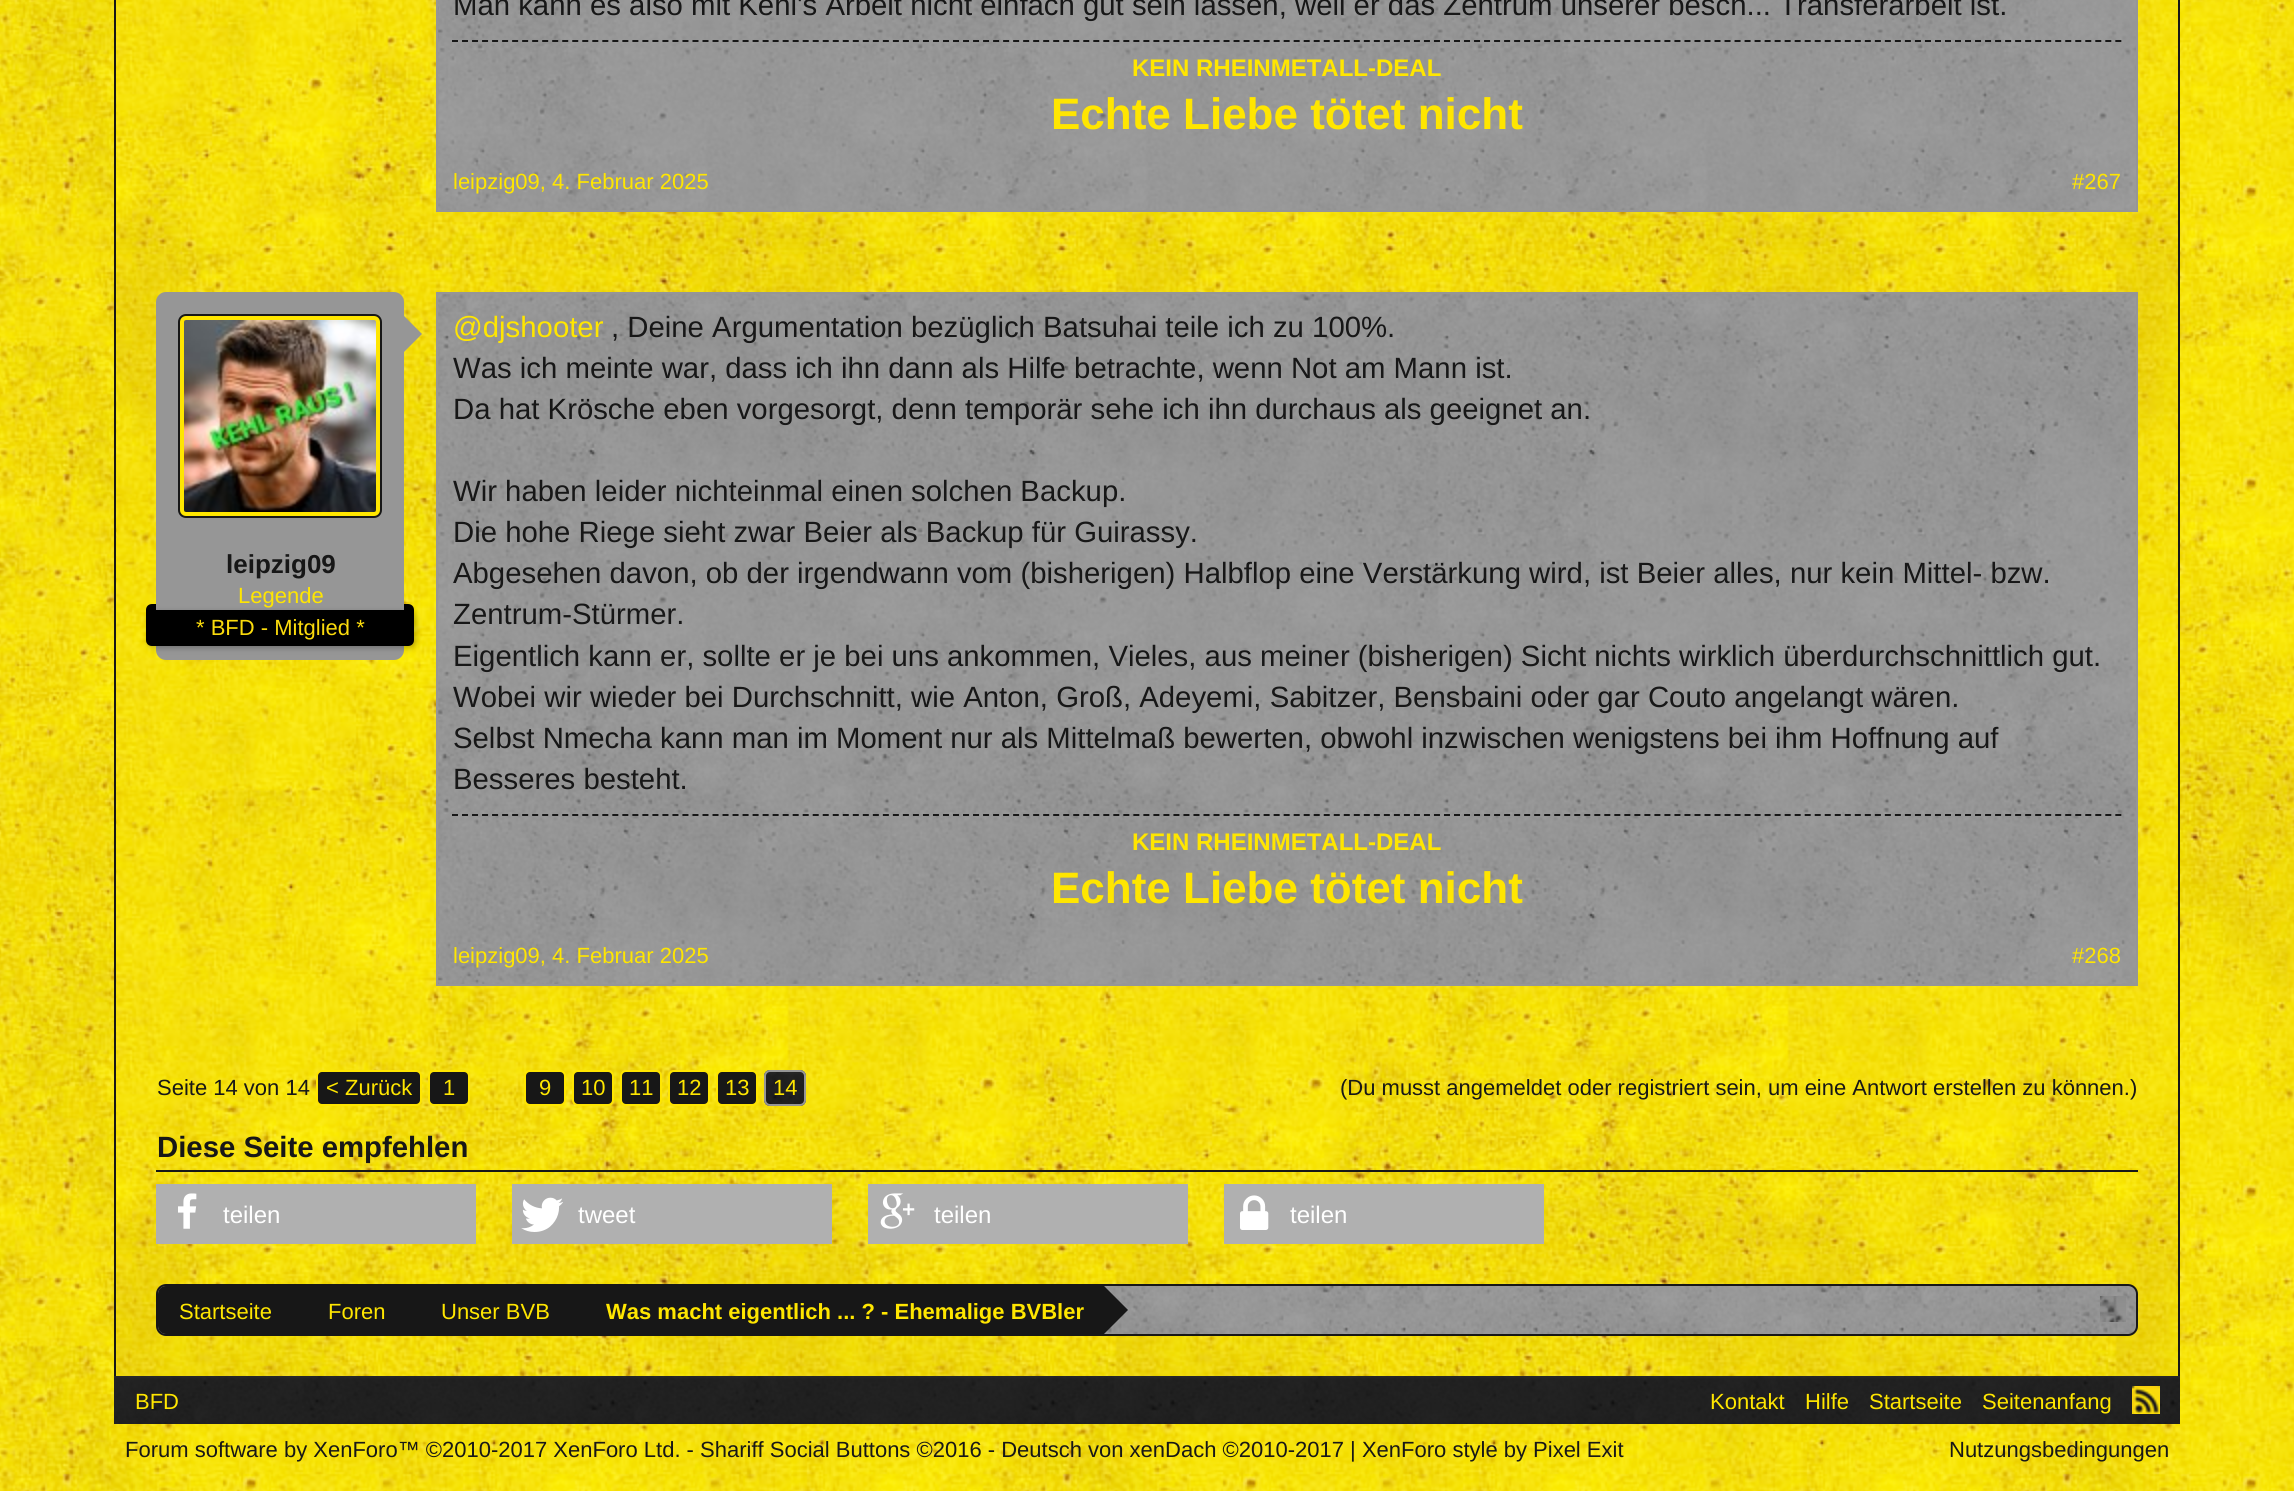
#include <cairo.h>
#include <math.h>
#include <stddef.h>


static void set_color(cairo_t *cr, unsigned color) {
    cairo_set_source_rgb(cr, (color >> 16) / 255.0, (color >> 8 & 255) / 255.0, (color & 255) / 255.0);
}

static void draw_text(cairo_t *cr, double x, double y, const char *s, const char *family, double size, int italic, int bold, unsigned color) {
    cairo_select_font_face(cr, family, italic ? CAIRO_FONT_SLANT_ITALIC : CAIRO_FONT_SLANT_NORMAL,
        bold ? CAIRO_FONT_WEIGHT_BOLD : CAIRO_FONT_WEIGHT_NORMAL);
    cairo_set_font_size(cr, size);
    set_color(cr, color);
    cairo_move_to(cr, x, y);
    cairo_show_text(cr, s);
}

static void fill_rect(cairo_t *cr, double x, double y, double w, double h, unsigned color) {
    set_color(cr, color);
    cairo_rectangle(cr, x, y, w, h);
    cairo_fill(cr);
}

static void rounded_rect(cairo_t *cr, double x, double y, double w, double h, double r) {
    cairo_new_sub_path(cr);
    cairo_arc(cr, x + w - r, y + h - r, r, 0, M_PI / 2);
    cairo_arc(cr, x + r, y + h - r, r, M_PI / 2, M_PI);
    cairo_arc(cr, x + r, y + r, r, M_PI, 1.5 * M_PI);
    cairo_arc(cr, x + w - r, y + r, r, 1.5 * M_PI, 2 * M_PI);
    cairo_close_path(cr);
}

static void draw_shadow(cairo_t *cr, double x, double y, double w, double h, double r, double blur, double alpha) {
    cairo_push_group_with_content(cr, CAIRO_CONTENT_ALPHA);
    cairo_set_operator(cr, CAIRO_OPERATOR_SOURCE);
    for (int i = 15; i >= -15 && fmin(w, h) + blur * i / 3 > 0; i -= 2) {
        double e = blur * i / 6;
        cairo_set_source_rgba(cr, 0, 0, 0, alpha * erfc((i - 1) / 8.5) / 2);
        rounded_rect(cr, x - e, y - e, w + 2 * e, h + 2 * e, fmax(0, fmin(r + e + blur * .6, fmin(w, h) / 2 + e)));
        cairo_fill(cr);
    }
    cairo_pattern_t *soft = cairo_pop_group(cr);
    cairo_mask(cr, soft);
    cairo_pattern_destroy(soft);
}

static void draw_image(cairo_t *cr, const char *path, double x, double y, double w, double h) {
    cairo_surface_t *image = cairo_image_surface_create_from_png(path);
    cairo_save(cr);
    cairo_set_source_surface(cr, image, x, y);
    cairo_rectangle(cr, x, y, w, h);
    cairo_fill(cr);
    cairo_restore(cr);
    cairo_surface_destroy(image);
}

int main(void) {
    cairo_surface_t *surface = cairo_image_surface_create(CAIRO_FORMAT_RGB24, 2294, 1491);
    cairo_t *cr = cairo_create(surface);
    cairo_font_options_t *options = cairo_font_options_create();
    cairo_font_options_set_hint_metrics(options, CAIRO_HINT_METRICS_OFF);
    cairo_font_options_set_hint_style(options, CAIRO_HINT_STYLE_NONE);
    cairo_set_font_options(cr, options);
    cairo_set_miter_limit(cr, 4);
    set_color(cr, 0xFFFFFF);
    cairo_paint(cr);
    draw_image(cr, "assets/img1.png", 0, 0, 2294, 1491);
    draw_image(cr, "assets/img2.png", 116, 0, 2062, 1376);
    fill_rect(cr, 2178, 0, 2, 1376, 0x171717);
    fill_rect(cr, 114, 0, 2, 1376, 0x171717);
    draw_image(cr, "assets/img3.png", 438, 0, 1698, 210);
    cairo_rectangle(cr, 437, -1, 1700, 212);
    set_color(cr, 0x969696);
    cairo_stroke(cr);
    draw_text(cr, 453, 15, "Man kann es also mit Kehl's Arbeit nicht einfach gut sein lassen, weil er das Zentrum unserer besch... Transferarbeit ist.", "Liberation Sans", 29.33, 0, 0, 0x171717);
    cairo_new_path(cr);
    cairo_move_to(cr, 452, 41);
    cairo_line_to(cr, 2122, 41);
    cairo_set_dash(cr, (double[]){6, 4.02}, 2, 0);
    cairo_stroke(cr);
    draw_text(cr, 1132, 76, "KEIN RHEINMETALL-DEAL", "Liberation Sans", 24, 0, 1, 0xFFE600);
    draw_text(cr, 1051, 129, "Echte Liebe tötet nicht", "Liberation Sans", 44, 0, 1, 0xFFE600);
    draw_text(cr, 453, 189, "leipzig09, 4. Februar 2025", "Liberation Sans", 22, 0, 0, 0xFFE600);
    draw_text(cr, 2072, 189, "#267", "Liberation Sans", 22, 0, 0, 0xFFE600);
    set_color(cr, 0x969696);
    rounded_rect(cr, 157, 293, 246, 366, 9);
    cairo_fill_preserve(cr);
    cairo_set_dash(cr, NULL, 0, 0);
    cairo_stroke(cr);
    set_color(cr, 0xFFE600);
    rounded_rect(cr, 179, 315, 202, 202, 7);
    cairo_fill_preserve(cr);
    set_color(cr, 0x171717);
    cairo_stroke(cr);
    draw_image(cr, "assets/img4.png", 184, 320, 192, 192);
    set_color(cr, 0x969696);
    cairo_new_path(cr);
    cairo_move_to(cr, 402, 354);
    cairo_line_to(cr, 402, 314);
    cairo_line_to(cr, 422, 334);
    cairo_close_path(cr);
    cairo_fill(cr);
    draw_text(cr, 226, 573, "leipzig09", "Liberation Sans", 26, 0, 1, 0x171717);
    draw_text(cr, 238, 603, "Legende", "Liberation Sans", 22, 0, 0, 0xFFE600);
    set_color(cr, 0x000000);
    draw_shadow(cr, 148, 612, 268, 36, 6, 3, 0.25);
    set_color(cr, 0x000000);
    cairo_new_path(cr);
    cairo_move_to(cr, 147, 611);
    cairo_line_to(cr, 413, 611);
    cairo_line_to(cr, 413, 640);
    cairo_curve_to(cr, 413, 643, 411, 645, 408, 645);
    cairo_line_to(cr, 152, 645);
    cairo_curve_to(cr, 149, 645, 147, 643, 147, 640);
    cairo_close_path(cr);
    cairo_fill_preserve(cr);
    cairo_stroke(cr);
    cairo_new_path(cr);
    cairo_move_to(cr, 152, 604);
    cairo_line_to(cr, 156, 604);
    cairo_line_to(cr, 156, 612);
    cairo_line_to(cr, 146, 612);
    cairo_line_to(cr, 146, 610);
    cairo_curve_to(cr, 146, 606.5, 148.5, 604, 152, 604);
    cairo_close_path(cr);
    cairo_fill(cr);
    cairo_new_path(cr);
    cairo_move_to(cr, 404, 604);
    cairo_line_to(cr, 408, 604);
    cairo_curve_to(cr, 411.5, 604, 414, 606.5, 414, 610);
    cairo_line_to(cr, 414, 612);
    cairo_line_to(cr, 404, 612);
    cairo_close_path(cr);
    cairo_fill(cr);
    draw_text(cr, 196, 635, "* BFD - Mitglied *", "Liberation Sans", 22, 0, 0, 0xFBDB0C);
    draw_image(cr, "assets/img5.png", 438, 294, 1698, 690);
    cairo_rectangle(cr, 437, 293, 1700, 692);
    set_color(cr, 0x969696);
    cairo_stroke(cr);
    draw_text(cr, 453, 337, "@djshooter", "Liberation Sans", 29.33, 0, 0, 0xFFE600);
    draw_text(cr, 611, 337, ", Deine Argumentation bezüglich Batsuhai teile ich zu 100%.", "Liberation Sans", 29.33, 0, 0, 0x171717);
    draw_text(cr, 453, 378, "Was ich meinte war, dass ich ihn dann als Hilfe betrachte, wenn Not am Mann ist.", "Liberation Sans", 29.33, 0, 0, 0x171717);
    draw_text(cr, 453, 419, "Da hat Krösche eben vorgesorgt, denn temporär sehe ich ihn durchaus als geeignet an.", "Liberation Sans", 29.33, 0, 0, 0x171717);
    draw_text(cr, 453, 501, "Wir haben leider nichteinmal einen solchen Backup.", "Liberation Sans", 29.33, 0, 0, 0x171717);
    draw_text(cr, 453, 542, "Die hohe Riege sieht zwar Beier als Backup für Guirassy.", "Liberation Sans", 29.33, 0, 0, 0x171717);
    draw_text(cr, 453, 583, "Abgesehen davon, ob der irgendwann vom (bisherigen) Halbflop eine Verstärkung wird, ist Beier alles, nur kein Mittel- bzw.", "Liberation Sans", 29.33, 0, 0, 0x171717);
    draw_text(cr, 453, 624, "Zentrum-Stürmer.", "Liberation Sans", 29.33, 0, 0, 0x171717);
    draw_text(cr, 453, 666, "Eigentlich kann er, sollte er je bei uns ankommen, Vieles, aus meiner (bisherigen) Sicht nichts wirklich überdurchschnittlich gut.", "Liberation Sans", 29.33, 0, 0, 0x171717);
    draw_text(cr, 453, 707, "Wobei wir wieder bei Durchschnitt, wie Anton, Groß, Adeyemi, Sabitzer, Bensbaini oder gar Couto angelangt wären.", "Liberation Sans", 29.33, 0, 0, 0x171717);
    draw_text(cr, 453, 748, "Selbst Nmecha kann man im Moment nur als Mittelmaß bewerten, obwohl inzwischen wenigstens bei ihm Hoffnung auf", "Liberation Sans", 29.33, 0, 0, 0x171717);
    draw_text(cr, 453, 789, "Besseres besteht.", "Liberation Sans", 29.33, 0, 0, 0x171717);
    cairo_new_path(cr);
    cairo_move_to(cr, 452, 815);
    cairo_line_to(cr, 2122, 815);
    cairo_set_dash(cr, (double[]){6, 4.02}, 2, 0);
    cairo_stroke(cr);
    draw_text(cr, 1132, 850, "KEIN RHEINMETALL-DEAL", "Liberation Sans", 24, 0, 1, 0xFFE600);
    draw_text(cr, 1051, 903, "Echte Liebe tötet nicht", "Liberation Sans", 44, 0, 1, 0xFFE600);
    draw_text(cr, 453, 963, "leipzig09, 4. Februar 2025", "Liberation Sans", 22, 0, 0, 0xFFE600);
    draw_text(cr, 2072, 963, "#268", "Liberation Sans", 22, 0, 0, 0xFFE600);
    draw_text(cr, 157, 1095, "Seite 14 von 14", "Liberation Sans", 22, 0, 0, 0x171717);
    rounded_rect(cr, 317, 1071, 104, 34, 5);
    cairo_fill_preserve(cr);
    set_color(cr, 0xFFE600);
    cairo_set_dash(cr, NULL, 0, 0);
    cairo_stroke(cr);
    draw_text(cr, 326, 1095, "< Zurück", "Liberation Sans", 22, 0, 0, 0xFFE600);
    set_color(cr, 0x171717);
    rounded_rect(cr, 429, 1071, 40, 34, 5);
    cairo_fill_preserve(cr);
    set_color(cr, 0xFFE600);
    cairo_stroke(cr);
    draw_text(cr, 443, 1095, "1", "Liberation Sans", 22, 0, 0, 0xFFE600);
    set_color(cr, 0x171717);
    rounded_rect(cr, 525, 1071, 40, 34, 5);
    cairo_fill_preserve(cr);
    set_color(cr, 0xFFE600);
    cairo_stroke(cr);
    draw_text(cr, 539, 1095, "9", "Liberation Sans", 22, 0, 0, 0xFFE600);
    set_color(cr, 0x171717);
    rounded_rect(cr, 573, 1071, 40, 34, 5);
    cairo_fill_preserve(cr);
    set_color(cr, 0xFFE600);
    cairo_stroke(cr);
    draw_text(cr, 581, 1095, "10", "Liberation Sans", 22, 0, 0, 0xFFE600);
    set_color(cr, 0x171717);
    rounded_rect(cr, 621, 1071, 40, 34, 5);
    cairo_fill_preserve(cr);
    set_color(cr, 0xFFE600);
    cairo_stroke(cr);
    draw_text(cr, 629, 1095, "11", "Liberation Sans", 22, 0, 0, 0xFFE600);
    set_color(cr, 0x171717);
    rounded_rect(cr, 669, 1071, 40, 34, 5);
    cairo_fill_preserve(cr);
    set_color(cr, 0xFFE600);
    cairo_stroke(cr);
    draw_text(cr, 677, 1095, "12", "Liberation Sans", 22, 0, 0, 0xFFE600);
    set_color(cr, 0x171717);
    rounded_rect(cr, 717, 1071, 40, 34, 5);
    cairo_fill_preserve(cr);
    set_color(cr, 0xFFE600);
    cairo_stroke(cr);
    draw_text(cr, 725, 1095, "13", "Liberation Sans", 22, 0, 0, 0xFFE600);
    draw_image(cr, "assets/img6.png", 764, 1070, 42, 36);
    rounded_rect(cr, 765, 1071, 40, 34, 5);
    set_color(cr, 0x969696);
    cairo_stroke(cr);
    draw_text(cr, 773, 1095, "14", "Liberation Sans", 22, 0, 0, 0xFFE600);
    draw_text(cr, 1340, 1095, "(Du musst angemeldet oder registriert sein, um eine Antwort erstellen zu können.)", "Liberation Sans", 22, 0, 0, 0x171717);
    fill_rect(cr, 156, 1170, 1982, 2, 0x171717);
    draw_text(cr, 157, 1157, "Diese Seite empfehlen", "Liberation Sans", 29.33, 0, 1, 0x171717);
    fill_rect(cr, 156, 1184, 320, 60, 0xB0B0B0);
    draw_image(cr, "assets/img7.png", 178, 1193, 19, 36);
    draw_text(cr, 223, 1223, "teilen", "Liberation Sans", 24, 0, 0, 0xFFFFFF);
    fill_rect(cr, 512, 1184, 320, 60, 0xB0B0B0);
    draw_image(cr, "assets/img8.png", 521, 1197, 42, 35);
    draw_text(cr, 578, 1223, "tweet", "Liberation Sans", 24, 0, 0, 0xFFFFFF);
    fill_rect(cr, 868, 1184, 320, 60, 0xB0B0B0);
    draw_image(cr, "assets/img9.png", 880, 1193, 35, 36);
    draw_text(cr, 934, 1223, "teilen", "Liberation Sans", 24, 0, 0, 0xFFFFFF);
    fill_rect(cr, 1224, 1184, 320, 60, 0xB0B0B0);
    draw_image(cr, "assets/img10.png", 1240, 1195, 29, 35);
    draw_text(cr, 1290, 1223, "teilen", "Liberation Sans", 24, 0, 0, 0xFFFFFF);
    draw_image(cr, "assets/img11.png", 156, 1286, 1982, 50);
    rounded_rect(cr, 157, 1285, 1980, 50, 9);
    set_color(cr, 0x171717);
    cairo_stroke(cr);
    cairo_save(cr);
    rounded_rect(cr, 158, 1286, 1978, 48, 8);
    cairo_clip(cr);
    cairo_new_path(cr);
    cairo_move_to(cr, 166, 1286);
    cairo_line_to(cr, 292, 1286);
    cairo_line_to(cr, 292, 1336);
    cairo_line_to(cr, 166, 1336);
    cairo_curve_to(cr, 161.5, 1336, 158, 1332.5, 158, 1328);
    cairo_line_to(cr, 158, 1294);
    cairo_curve_to(cr, 158, 1289.5, 161.5, 1286, 166, 1286);
    cairo_close_path(cr);
    cairo_fill(cr);
    cairo_restore(cr);
    draw_text(cr, 179, 1319, "Startseite", "Liberation Sans", 22, 0, 0, 0xFFE600);
    fill_rect(cr, 292, 1286, 812, 48, 0x171717);
    draw_text(cr, 328, 1319, "Foren", "Liberation Sans", 22, 0, 0, 0xFFE600);
    draw_text(cr, 441, 1319, "Unser BVB", "Liberation Sans", 22, 0, 0, 0xFFE600);
    draw_text(cr, 606, 1319, "Was macht eigentlich ... ? - Ehemalige BVBler", "Liberation Sans", 22, 0, 1, 0xFFE600);
    set_color(cr, 0x171717);
    cairo_new_path(cr);
    cairo_move_to(cr, 1104, 1334);
    cairo_line_to(cr, 1104, 1286);
    cairo_line_to(cr, 1128, 1310);
    cairo_close_path(cr);
    cairo_fill(cr);
    draw_image(cr, "assets/img12.png", 2100, 1296, 26, 26);
    draw_image(cr, "assets/img13.png", 114, 1376, 2066, 48);
    draw_text(cr, 135, 1409, "BFD", "Liberation Sans", 22, 0, 0, 0xFFE600);
    draw_text(cr, 1710, 1409, "Kontakt", "Liberation Sans", 22, 0, 0, 0xFFE600);
    draw_text(cr, 1805, 1409, "Hilfe", "Liberation Sans", 22, 0, 0, 0xFFE600);
    draw_text(cr, 1869, 1409, "Startseite", "Liberation Sans", 22, 0, 0, 0xFFE600);
    draw_text(cr, 1982, 1409, "Seitenanfang", "Liberation Sans", 22, 0, 0, 0xFFE600);
    draw_image(cr, "assets/img14.png", 2132, 1386, 28, 28);
    draw_text(cr, 125, 1457, "Forum software by XenForo™ ©2010-2017 XenForo Ltd. - Shariff Social Buttons ©2016 - Deutsch von xenDach ©2010-2017 | XenForo style by Pixel Exit", "Liberation Sans", 22, 0, 0, 0x171717);
    draw_text(cr, 1949, 1457, "Nutzungsbedingungen", "Liberation Sans", 22, 0, 0, 0x171717);
    cairo_surface_write_to_png(surface, "output.png");
    cairo_font_options_destroy(options);
    cairo_destroy(cr);
    cairo_surface_destroy(surface);
    return 0;
}
